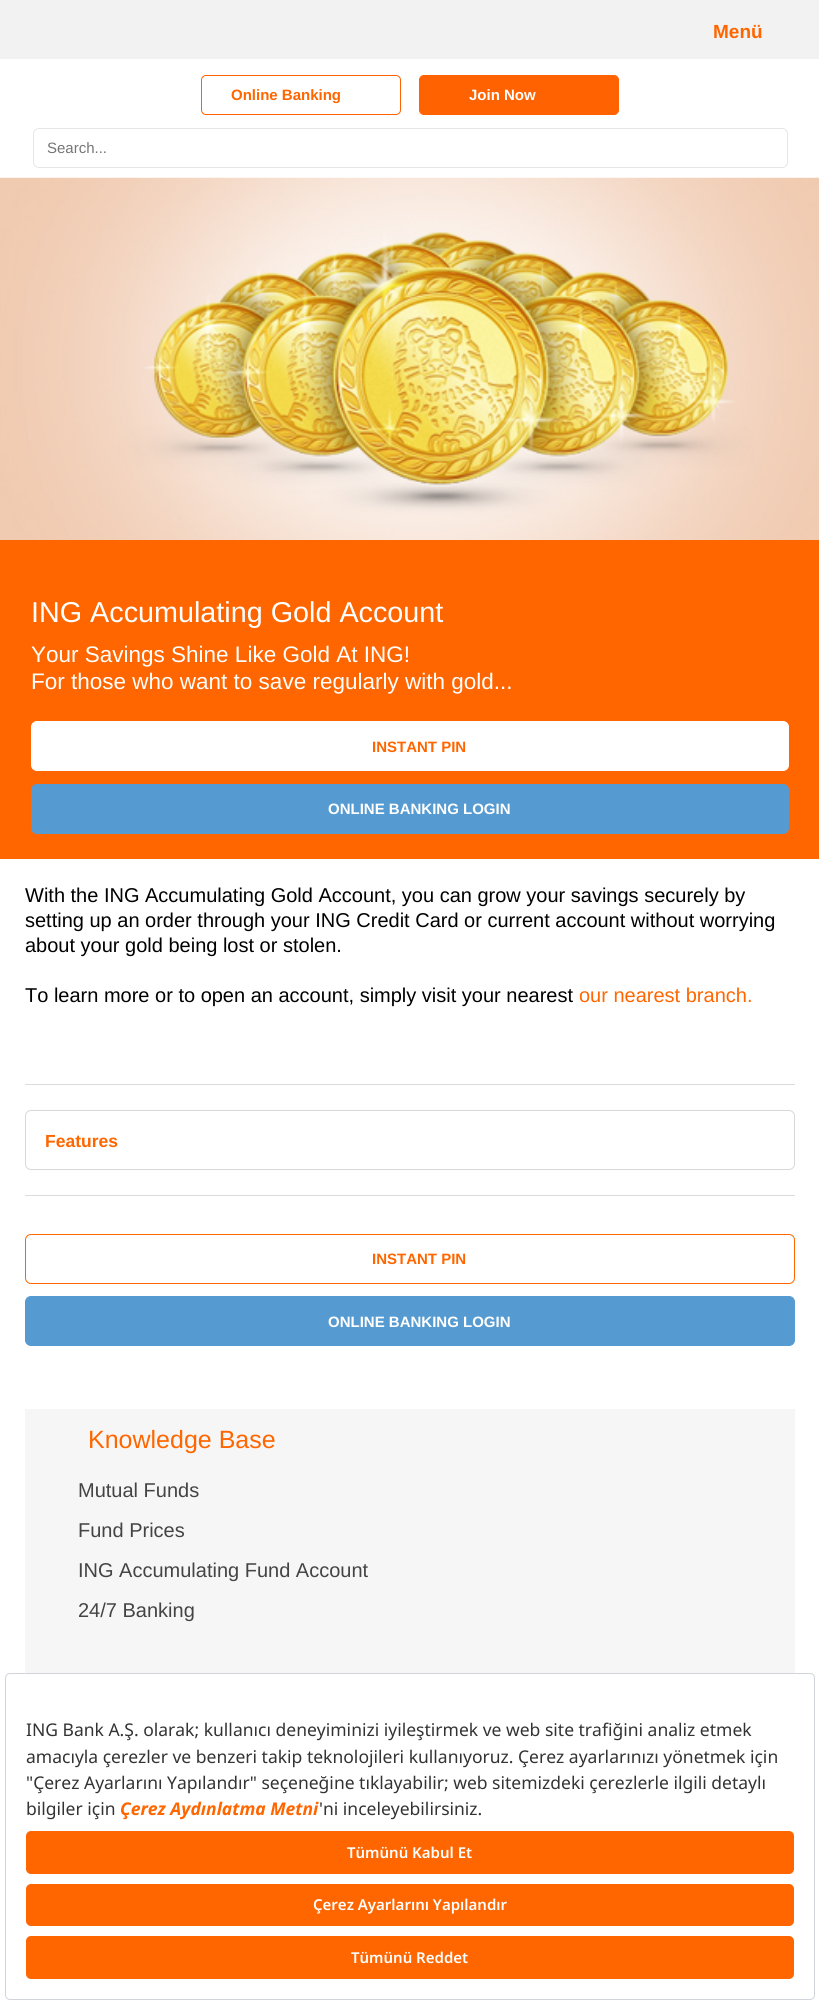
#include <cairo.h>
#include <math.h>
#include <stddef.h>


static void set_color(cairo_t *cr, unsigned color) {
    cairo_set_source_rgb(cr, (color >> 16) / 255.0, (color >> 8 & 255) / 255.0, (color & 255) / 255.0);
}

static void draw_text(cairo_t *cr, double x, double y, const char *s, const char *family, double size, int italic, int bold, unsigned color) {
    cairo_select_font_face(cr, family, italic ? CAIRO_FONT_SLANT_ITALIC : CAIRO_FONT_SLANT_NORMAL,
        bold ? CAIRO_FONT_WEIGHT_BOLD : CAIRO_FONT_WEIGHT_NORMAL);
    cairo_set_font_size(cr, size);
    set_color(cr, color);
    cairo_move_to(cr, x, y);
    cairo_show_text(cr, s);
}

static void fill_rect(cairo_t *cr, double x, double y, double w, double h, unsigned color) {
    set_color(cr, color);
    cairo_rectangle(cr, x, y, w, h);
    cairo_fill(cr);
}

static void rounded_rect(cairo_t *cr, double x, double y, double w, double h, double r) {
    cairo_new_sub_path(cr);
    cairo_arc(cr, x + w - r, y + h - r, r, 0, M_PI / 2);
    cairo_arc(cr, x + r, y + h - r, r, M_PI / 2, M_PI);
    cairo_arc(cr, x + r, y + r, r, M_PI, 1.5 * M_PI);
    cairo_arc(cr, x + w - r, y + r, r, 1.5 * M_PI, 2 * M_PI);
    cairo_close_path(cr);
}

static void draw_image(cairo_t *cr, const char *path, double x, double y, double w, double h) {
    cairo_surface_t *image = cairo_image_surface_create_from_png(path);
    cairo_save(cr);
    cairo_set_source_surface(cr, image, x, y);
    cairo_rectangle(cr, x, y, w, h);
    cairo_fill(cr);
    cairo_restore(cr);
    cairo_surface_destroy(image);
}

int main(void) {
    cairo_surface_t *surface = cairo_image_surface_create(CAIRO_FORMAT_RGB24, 819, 2004);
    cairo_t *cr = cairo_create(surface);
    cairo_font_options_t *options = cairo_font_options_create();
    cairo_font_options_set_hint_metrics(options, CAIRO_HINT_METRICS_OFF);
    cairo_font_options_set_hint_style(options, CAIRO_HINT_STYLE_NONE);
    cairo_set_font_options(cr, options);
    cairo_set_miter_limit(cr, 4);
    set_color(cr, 0xFFFFFF);
    cairo_paint(cr);
    fill_rect(cr, 0, 0, 819, 59, 0xF2F2F2);
    draw_text(cr, 713, 38, "Menü", "Liberation Sans", 19, 0, 1, 0xFF6600);
    rounded_rect(cr, 201.5, 75.5, 199, 39, 4.5);
    set_color(cr, 0xFF6200);
    cairo_set_line_width(cr, 1);
    cairo_stroke(cr);
    draw_text(cr, 231, 100, "Online Banking", "Liberation Sans", 15, 0, 1, 0xFF6600);
    set_color(cr, 0xFF6200);
    rounded_rect(cr, 419.5, 75.5, 199, 39, 4.5);
    cairo_fill_preserve(cr);
    cairo_stroke(cr);
    draw_text(cr, 469, 100, "Join Now", "Liberation Sans", 15, 0, 1, 0xFFFFFF);
    rounded_rect(cr, 33.5, 128.5, 754, 39, 5.5);
    set_color(cr, 0xE6E6E6);
    cairo_stroke(cr);
    draw_text(cr, 47, 153, "Search...", "Liberation Sans", 15, 0, 0, 0x757575);
    draw_image(cr, "assets/img1.png", 0, 177, 819, 363);
    fill_rect(cr, 0, 540, 819, 319, 0xFF6600);
    draw_text(cr, 31, 622, "ING Accumulating Gold Account", "Liberation Sans", 28.75, 0, 0, 0xFFFFFF);
    draw_text(cr, 31, 662, "Your Savings Shine Like Gold At ING!", "Liberation Sans", 22.5, 0, 0, 0xFFFFFF);
    draw_text(cr, 31, 689, "For those who want to save regularly with gold...", "Liberation Sans", 22.5, 0, 0, 0xFFFFFF);
    rounded_rect(cr, 31.5, 721.5, 757, 49, 5.5);
    cairo_fill_preserve(cr);
    cairo_stroke(cr);
    draw_text(cr, 372, 752, "INSTANT PIN", "Liberation Sans", 15, 0, 1, 0xFF6600);
    set_color(cr, 0x559BD1);
    rounded_rect(cr, 31.5, 784.5, 757, 49, 5.5);
    cairo_fill_preserve(cr);
    cairo_stroke(cr);
    draw_text(cr, 328, 814, "ONLINE BANKING LOGIN", "Liberation Sans", 15, 0, 1, 0xFFFFFF);
    draw_text(cr, 25, 902, "With the ING Accumulating Gold Account, you can grow your savings securely by", "Liberation Sans", 20, 0, 0, 0x000000);
    draw_text(cr, 25, 927, "setting up an order through your ING Credit Card or current account without worrying", "Liberation Sans", 20, 0, 0, 0x000000);
    draw_text(cr, 25, 952, "about your gold being lost or stolen.", "Liberation Sans", 20, 0, 0, 0x000000);
    draw_text(cr, 25, 1002, "To learn more or to open an account, simply visit your nearest", "Liberation Sans", 20, 0, 0, 0x000000);
    draw_text(cr, 579, 1002, "our nearest branch.", "Liberation Sans", 20, 0, 0, 0xFF6600);
    fill_rect(cr, 25, 1084, 770, 1, 0xDBDBDB);
    rounded_rect(cr, 25.5, 1110.5, 769, 59, 5.5);
    set_color(cr, 0xD8D8D8);
    cairo_stroke(cr);
    draw_text(cr, 45, 1147, "Features", "Liberation Sans", 17.5, 0, 1, 0xFF6600);
    fill_rect(cr, 25, 1195, 770, 1, 0xDBDBDB);
    rounded_rect(cr, 25.5, 1234.5, 769, 49, 5.5);
    set_color(cr, 0xFF6600);
    cairo_stroke(cr);
    draw_text(cr, 372, 1264, "INSTANT PIN", "Liberation Sans", 15, 0, 1, 0xFF6600);
    set_color(cr, 0x559BD1);
    rounded_rect(cr, 25.5, 1296.5, 769, 49, 5.5);
    cairo_fill_preserve(cr);
    cairo_stroke(cr);
    draw_text(cr, 328, 1327, "ONLINE BANKING LOGIN", "Liberation Sans", 15, 0, 1, 0xFFFFFF);
    fill_rect(cr, 25, 1409, 770, 264, 0xF6F6F6);
    draw_text(cr, 88, 1448, "Knowledge Base", "Liberation Sans", 25, 0, 0, 0xFF6600);
    draw_text(cr, 78, 1497, "Mutual Funds", "Liberation Sans", 20, 0, 0, 0x444444);
    draw_text(cr, 78, 1537, "Fund Prices", "Liberation Sans", 20, 0, 0, 0x444444);
    draw_text(cr, 78, 1577, "ING Accumulating Fund Account", "Liberation Sans", 20, 0, 0, 0x444444);
    draw_text(cr, 78, 1617, "24/7 Banking", "Liberation Sans", 20, 0, 0, 0x444444);
    rounded_rect(cr, 5.5, 1673.5, 809, 326, 4.5);
    set_color(cr, 0xD1D5DB);
    cairo_stroke(cr);
    draw_text(cr, 26, 1736, "ING Bank A.Ş. olarak; kullanıcı deneyiminizi iyileştirmek ve web site trafiğini analiz etmek", "Noto Sans", 17.5, 0, 0, 0x333333);
    draw_text(cr, 26, 1763, "amacıyla çerezler ve benzeri takip teknolojileri kullanıyoruz. Çerez ayarlarınızı yönetmek için", "Noto Sans", 17.5, 0, 0, 0x333333);
    draw_text(cr, 26, 1789, "\"Çerez Ayarlarını Yapılandır\" seçeneğine tıklayabilir; web sitemizdeki çerezlerle ilgili detaylı", "Noto Sans", 17.5, 0, 0, 0x333333);
    draw_text(cr, 26, 1815, "bilgiler için", "Noto Sans", 17.5, 0, 0, 0x333333);
    draw_text(cr, 120, 1815, "Çerez Aydınlatma Metni", "Noto Sans", 17.5, 1, 1, 0xFF6600);
    draw_text(cr, 319, 1815, "'ni inceleyebilirsiniz.", "Noto Sans", 17.5, 0, 0, 0x333333);
    set_color(cr, 0xFF6600);
    rounded_rect(cr, 26, 1831, 768, 43, 5);
    cairo_fill(cr);
    draw_text(cr, 347, 1858, "Tümünü Kabul Et", "Noto Sans SemiBold", 15, 0, 0, 0xFFFFFF);
    set_color(cr, 0xFF6600);
    rounded_rect(cr, 26, 1884, 768, 42, 5);
    cairo_fill(cr);
    draw_text(cr, 313, 1910, "Çerez Ayarlarını Yapılandır", "Noto Sans SemiBold", 15, 0, 0, 0xFFFFFF);
    set_color(cr, 0xFF6600);
    rounded_rect(cr, 26, 1936, 768, 43, 5);
    cairo_fill(cr);
    draw_text(cr, 351, 1963, "Tümünü Reddet", "Noto Sans SemiBold", 15, 0, 0, 0xFFFFFF);
    cairo_surface_write_to_png(surface, "output.png");
    cairo_font_options_destroy(options);
    cairo_destroy(cr);
    cairo_surface_destroy(surface);
    return 0;
}
